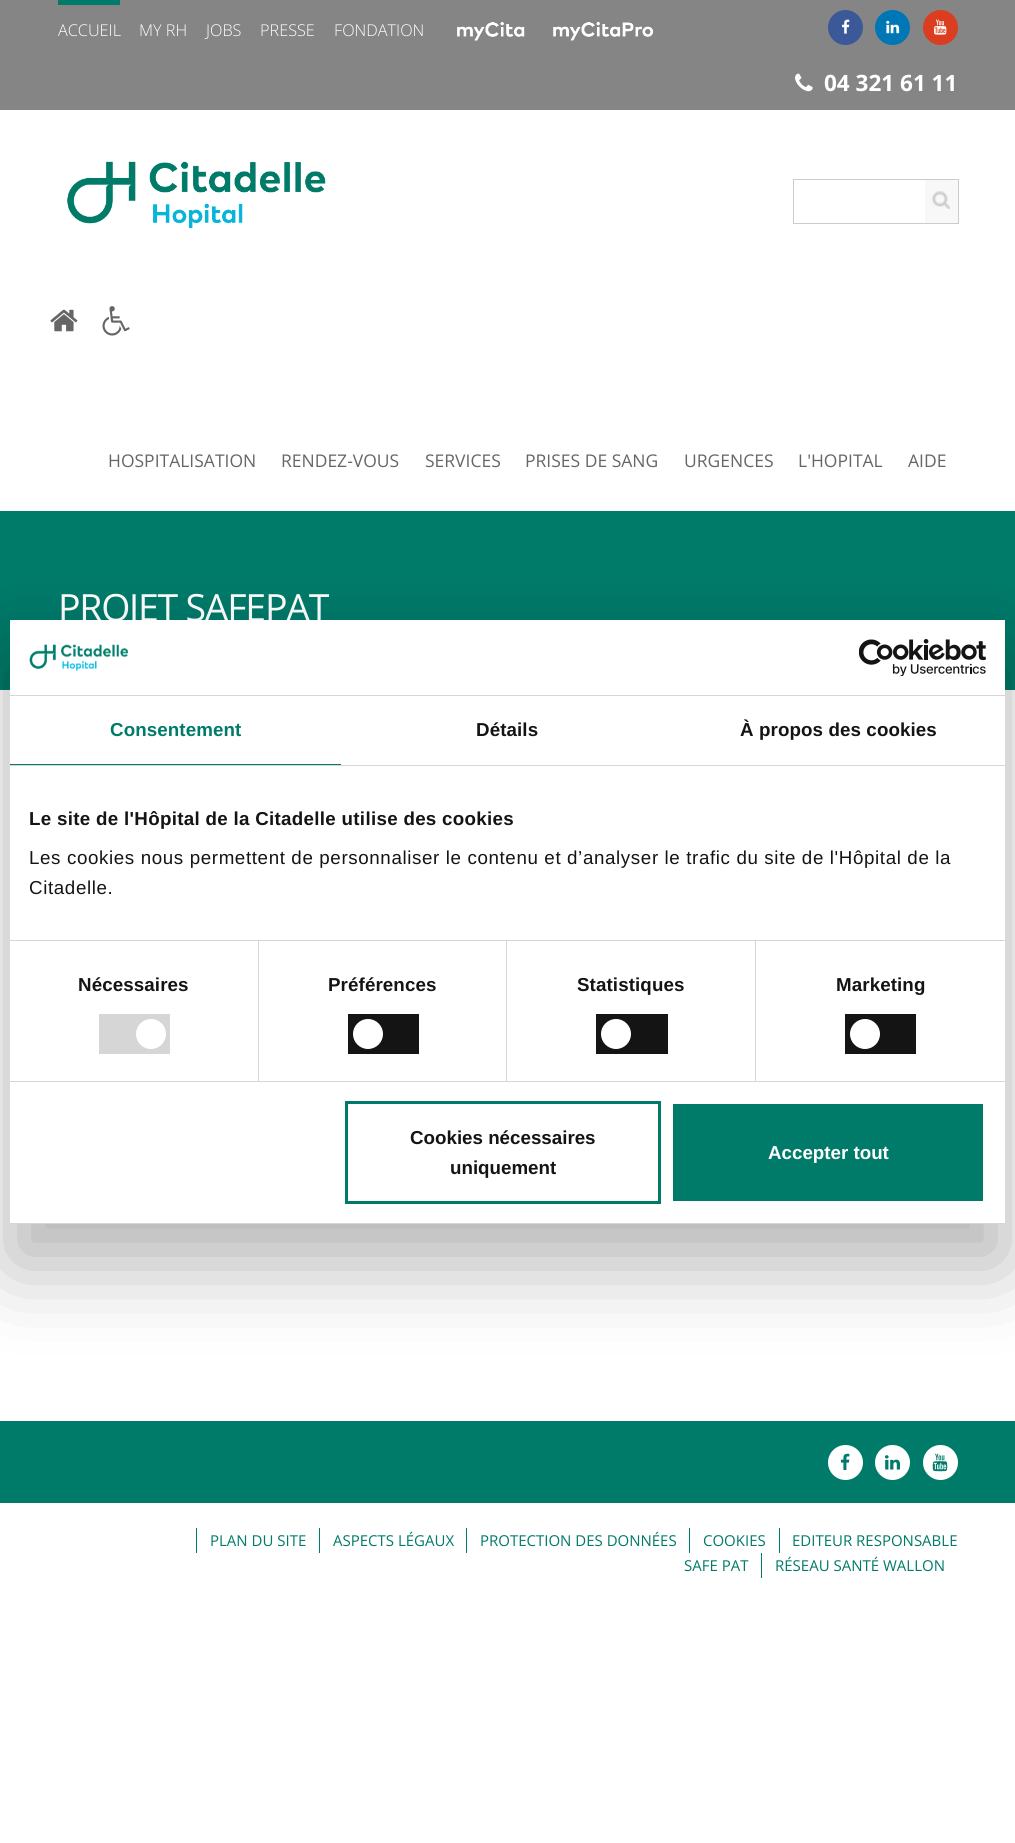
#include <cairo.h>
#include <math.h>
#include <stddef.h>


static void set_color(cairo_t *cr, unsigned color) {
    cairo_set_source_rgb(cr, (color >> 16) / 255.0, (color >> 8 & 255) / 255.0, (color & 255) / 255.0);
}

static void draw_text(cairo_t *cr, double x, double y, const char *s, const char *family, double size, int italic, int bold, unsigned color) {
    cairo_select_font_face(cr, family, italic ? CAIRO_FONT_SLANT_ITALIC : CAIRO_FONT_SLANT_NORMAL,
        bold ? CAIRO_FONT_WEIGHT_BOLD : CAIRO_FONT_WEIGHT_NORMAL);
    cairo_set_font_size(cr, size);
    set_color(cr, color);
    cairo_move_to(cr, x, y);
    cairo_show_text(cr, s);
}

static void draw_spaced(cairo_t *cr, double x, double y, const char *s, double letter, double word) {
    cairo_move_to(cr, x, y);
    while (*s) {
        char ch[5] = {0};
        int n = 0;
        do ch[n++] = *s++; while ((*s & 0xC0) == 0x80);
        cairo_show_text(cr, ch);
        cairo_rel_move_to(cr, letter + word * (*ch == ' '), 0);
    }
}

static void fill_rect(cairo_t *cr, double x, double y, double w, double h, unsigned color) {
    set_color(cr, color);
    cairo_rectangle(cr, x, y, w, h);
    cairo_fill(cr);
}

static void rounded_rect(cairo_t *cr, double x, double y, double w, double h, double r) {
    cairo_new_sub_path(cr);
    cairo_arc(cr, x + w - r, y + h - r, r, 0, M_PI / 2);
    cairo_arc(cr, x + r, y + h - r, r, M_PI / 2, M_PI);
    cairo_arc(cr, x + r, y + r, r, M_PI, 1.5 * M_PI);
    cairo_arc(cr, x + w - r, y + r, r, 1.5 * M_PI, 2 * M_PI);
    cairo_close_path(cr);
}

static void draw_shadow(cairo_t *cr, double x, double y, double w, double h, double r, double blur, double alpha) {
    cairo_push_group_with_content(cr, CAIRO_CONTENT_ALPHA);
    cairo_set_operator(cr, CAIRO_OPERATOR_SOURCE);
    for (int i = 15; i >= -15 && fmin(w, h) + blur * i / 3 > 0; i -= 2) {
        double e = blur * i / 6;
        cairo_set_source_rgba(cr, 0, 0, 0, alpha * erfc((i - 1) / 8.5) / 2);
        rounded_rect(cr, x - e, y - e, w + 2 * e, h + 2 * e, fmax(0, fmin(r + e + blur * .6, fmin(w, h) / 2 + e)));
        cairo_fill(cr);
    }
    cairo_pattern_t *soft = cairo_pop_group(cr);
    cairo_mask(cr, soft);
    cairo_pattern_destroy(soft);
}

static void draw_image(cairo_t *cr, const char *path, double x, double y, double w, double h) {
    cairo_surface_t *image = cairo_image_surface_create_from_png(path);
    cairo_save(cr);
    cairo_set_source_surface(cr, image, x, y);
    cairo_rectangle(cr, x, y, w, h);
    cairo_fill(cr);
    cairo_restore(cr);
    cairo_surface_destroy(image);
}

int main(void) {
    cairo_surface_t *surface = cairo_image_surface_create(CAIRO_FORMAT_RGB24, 1015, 1843);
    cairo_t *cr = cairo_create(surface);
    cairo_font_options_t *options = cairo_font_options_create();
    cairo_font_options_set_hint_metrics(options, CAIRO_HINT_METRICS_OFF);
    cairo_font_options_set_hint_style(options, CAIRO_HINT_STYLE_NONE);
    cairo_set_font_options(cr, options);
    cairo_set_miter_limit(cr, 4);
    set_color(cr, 0xFFFFFF);
    cairo_paint(cr);
    fill_rect(cr, 0, 0, 1015, 110, 0x858585);
    fill_rect(cr, 58, 0, 62, 5, 0x007A69);
    draw_text(cr, 58, 36, "ACCUEIL", "Open Sans Light", 16.25, 0, 0, 0xFFFFFF);
    draw_text(cr, 139, 36, "MY RH", "Open Sans Light", 16.25, 0, 0, 0xFFFFFF);
    draw_text(cr, 206, 36, "JOBS", "Open Sans Light", 16.25, 0, 0, 0xFFFFFF);
    draw_text(cr, 260, 36, "PRESSE", "Open Sans Light", 16.25, 0, 0, 0xFFFFFF);
    draw_text(cr, 334, 36, "FONDATION", "Open Sans Light", 16.25, 0, 0, 0xFFFFFF);
    draw_image(cr, "assets/img1.png", 457, 21, 68, 20);
    draw_image(cr, "assets/img2.png", 553, 21, 101, 20);
    set_color(cr, 0x3B5998);
    cairo_arc(cr, 845.5, 27.5, 17.5, 0, 2 * M_PI);
    cairo_fill(cr);
    draw_image(cr, "assets/img3.png", 842, 19, 8, 15);
    set_color(cr, 0x0077B5);
    cairo_arc(cr, 892.5, 27.5, 17.5, 0, 2 * M_PI);
    cairo_fill(cr);
    draw_image(cr, "assets/img4.png", 886, 20, 14, 14);
    set_color(cr, 0xDA3D1F);
    cairo_arc(cr, 940.5, 27.5, 17.5, 0, 2 * M_PI);
    cairo_fill(cr);
    draw_image(cr, "assets/img5.png", 934, 19, 13, 16);
    draw_image(cr, "assets/img6.png", 795, 73, 18, 19);
    draw_text(cr, 824, 91, "04 321 61 11", "Open Sans", 22.5, 0, 1, 0xFFFFFF);
    draw_image(cr, "assets/img7.png", 67, 161, 259, 68);
    cairo_rectangle(cr, 793.5, 179.5, 165, 44);
    set_color(cr, 0xCCCCCC);
    cairo_set_line_width(cr, 1);
    cairo_stroke(cr);
    fill_rect(cr, 925, 180, 33, 43, 0xF8F8F8);
    draw_image(cr, "assets/img8.png", 932, 191, 18, 18);
    draw_image(cr, "assets/img9.png", 50, 309, 28, 23);
    draw_image(cr, "assets/img10.png", 102, 306, 28, 30);
    draw_text(cr, 108, 467, "HOSPITALISATION", "Open Sans", 17.5, 0, 0, 0x666666);
    draw_text(cr, 281, 467, "RENDEZ-VOUS", "Open Sans", 17.5, 0, 0, 0x666666);
    draw_text(cr, 425, 467, "SERVICES", "Open Sans", 17.5, 0, 0, 0x666666);
    draw_text(cr, 525, 467, "PRISES DE SANG", "Open Sans", 17.5, 0, 0, 0x666666);
    draw_text(cr, 684, 467, "URGENCES", "Open Sans", 17.5, 0, 0, 0x666666);
    draw_text(cr, 798, 467, "L'HOPITAL", "Open Sans", 17.5, 0, 0, 0x666666);
    draw_text(cr, 908, 467, "AIDE", "Open Sans", 17.5, 0, 0, 0x666666);
    fill_rect(cr, 0, 511, 1015, 179, 0x007A69);
    cairo_set_font_size(cr, 37.5);
    set_color(cr, 0xFFFFFF);
    draw_spaced(cr, 58, 621, "PROJET SAFEPAT", -1.25, 0);
    fill_rect(cr, 0, 1421, 1015, 82, 0x007A69);
    set_color(cr, 0xFFFFFF);
    cairo_new_path(cr);
    cairo_arc(cr, 845.5, 1462.5, 17.5, 0, 2 * M_PI);
    cairo_fill(cr);
    draw_image(cr, "assets/img11.png", 840, 1453, 10, 17);
    cairo_arc(cr, 892.5, 1462.5, 17.5, 0, 2 * M_PI);
    cairo_fill(cr);
    draw_image(cr, "assets/img12.png", 885, 1455, 15, 15);
    cairo_arc(cr, 940.5, 1462.5, 17.5, 0, 2 * M_PI);
    cairo_fill(cr);
    draw_image(cr, "assets/img13.png", 932, 1453, 16, 19);
    fill_rect(cr, 196, 1528, 1, 25, 0x007A69);
    draw_text(cr, 210, 1546, "PLAN DU SITE", "Open Sans", 15, 0, 0, 0x007A69);
    fill_rect(cr, 319, 1528, 1, 25, 0x007A69);
    draw_text(cr, 333, 1546, "ASPECTS LÉGAUX", "Open Sans", 15, 0, 0, 0x007A69);
    fill_rect(cr, 466, 1528, 1, 25, 0x007A69);
    draw_text(cr, 480, 1546, "PROTECTION DES DONNÉES", "Open Sans", 15, 0, 0, 0x007A69);
    fill_rect(cr, 689, 1528, 1, 25, 0x007A69);
    draw_text(cr, 703, 1546, "COOKIES", "Open Sans", 15, 0, 0, 0x007A69);
    fill_rect(cr, 779, 1528, 1, 25, 0x007A69);
    draw_text(cr, 792, 1546, "EDITEUR RESPONSABLE", "Open Sans", 15, 0, 0, 0x007A69);
    draw_text(cr, 684, 1571, "SAFE PAT", "Open Sans", 15, 0, 0, 0x007A69);
    fill_rect(cr, 761, 1553, 1, 25, 0x007A69);
    draw_text(cr, 775, 1571, "RÉSEAU SANTÉ WALLON", "Open Sans", 15, 0, 0, 0x007A69);
    set_color(cr, 0x000000);
    draw_shadow(cr, 10, 660, 995, 604, 0, 42.5, 0.3);
    fill_rect(cr, 10, 620, 995, 603, 0xFFFFFF);
    fill_rect(cr, 10, 695, 995, 1, 0xD6D6D6);
    draw_image(cr, "assets/img14.png", 29, 644, 99, 27);
    draw_image(cr, "assets/img15.png", 859, 639, 127, 37);
    fill_rect(cr, 10, 765, 995, 1, 0xD6D6D6);
    fill_rect(cr, 10, 764, 331, 1, 0x007A69);
    cairo_select_font_face(cr, "Liberation Sans", CAIRO_FONT_SLANT_NORMAL, CAIRO_FONT_WEIGHT_BOLD);
    cairo_set_font_size(cr, 18.75);
    draw_spaced(cr, 110, 736, "Consentement", 0.1, 0);
    set_color(cr, 0x141414);
    draw_spaced(cr, 476, 736, "Détails", 0.1, 0);
    draw_spaced(cr, 740, 736, "À propos des cookies", 0.1, 0);
    fill_rect(cr, 10, 940, 995, 1, 0xD6D6D6);
    set_color(cr, 0x141414);
    draw_spaced(cr, 29, 825, "Le site de l'Hôpital de la Citadelle utilise des cookies", 0.3, 0);
    cairo_select_font_face(cr, "Liberation Sans", CAIRO_FONT_SLANT_NORMAL, CAIRO_FONT_WEIGHT_NORMAL);
    draw_spaced(cr, 29, 864, "Les cookies nous permettent de personnaliser le contenu et d’analyser le trafic du site de l'Hôpital de la", 0.62, 0);
    draw_spaced(cr, 29, 894, "Citadelle.", 0.62, 0);
    fill_rect(cr, 10, 1081, 995, 1, 0xD6D6D6);
    fill_rect(cr, 258, 941, 1, 140, 0xD6D6D6);
    cairo_select_font_face(cr, "Liberation Sans", CAIRO_FONT_SLANT_NORMAL, CAIRO_FONT_WEIGHT_BOLD);
    set_color(cr, 0x141414);
    draw_spaced(cr, 78, 991, "Nécessaires", 0.1, 0);
    fill_rect(cr, 99, 1014, 71, 40, 0xD6D6D6);
    set_color(cr, 0xFFFFFF);
    cairo_new_path(cr);
    cairo_arc(cr, 151, 1034, 15, 0, 2 * M_PI);
    cairo_fill(cr);
    fill_rect(cr, 506, 941, 1, 140, 0xD6D6D6);
    set_color(cr, 0x141414);
    draw_spaced(cr, 328, 991, "Préférences", 0.1, 0);
    fill_rect(cr, 348, 1014, 71, 40, 0x141414);
    set_color(cr, 0xFFFFFF);
    cairo_new_path(cr);
    cairo_arc(cr, 368, 1034, 15, 0, 2 * M_PI);
    cairo_fill(cr);
    fill_rect(cr, 755, 941, 1, 140, 0xD6D6D6);
    set_color(cr, 0x141414);
    draw_spaced(cr, 577, 991, "Statistiques", 0.1, 0);
    fill_rect(cr, 596, 1014, 72, 40, 0x141414);
    set_color(cr, 0xFFFFFF);
    cairo_new_path(cr);
    cairo_arc(cr, 616, 1034, 15, 0, 2 * M_PI);
    cairo_fill(cr);
    set_color(cr, 0x141414);
    draw_spaced(cr, 836, 991, "Marketing", 0.1, 0);
    fill_rect(cr, 845, 1014, 71, 40, 0x141414);
    set_color(cr, 0xFFFFFF);
    cairo_new_path(cr);
    cairo_arc(cr, 865, 1034, 15, 0, 2 * M_PI);
    cairo_fill(cr);
    fill_rect(cr, 10, 1223, 995, 1, 0xD6D6D6);
    cairo_rectangle(cr, 346.5, 1102.5, 313, 100);
    set_color(cr, 0x007A69);
    cairo_set_line_width(cr, 3);
    cairo_stroke(cr);
    draw_text(cr, 410, 1144, "Cookies nécessaires", "Liberation Sans", 18.75, 0, 1, 0x141414);
    draw_text(cr, 450, 1174, "uniquement", "Liberation Sans", 18.75, 0, 1, 0x141414);
    fill_rect(cr, 673, 1104, 310, 97, 0x007A69);
    draw_text(cr, 768, 1159, "Accepter tout", "Liberation Sans", 18.75, 0, 1, 0xFFFFFF);
    cairo_surface_write_to_png(surface, "output.png");
    cairo_font_options_destroy(options);
    cairo_destroy(cr);
    cairo_surface_destroy(surface);
    return 0;
}
